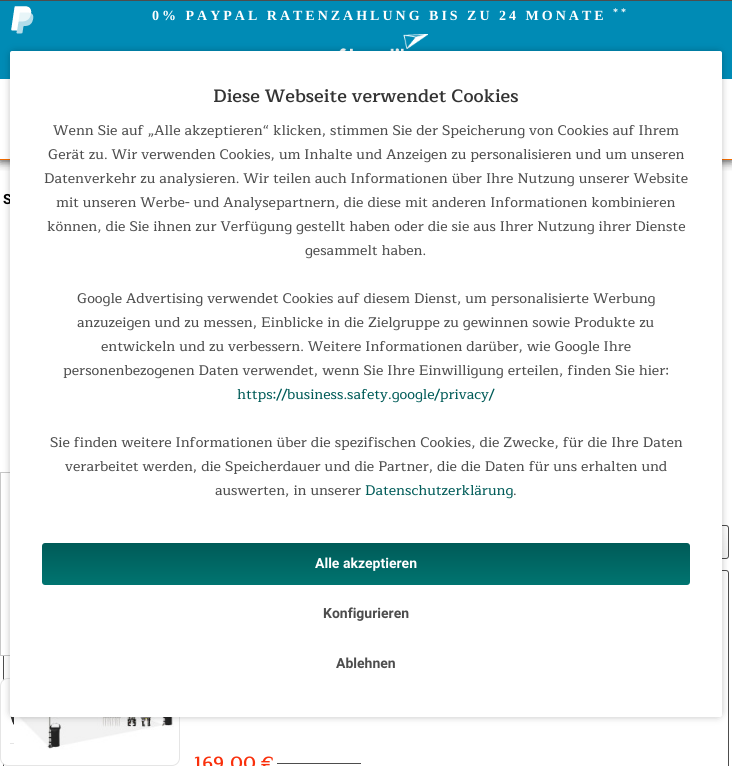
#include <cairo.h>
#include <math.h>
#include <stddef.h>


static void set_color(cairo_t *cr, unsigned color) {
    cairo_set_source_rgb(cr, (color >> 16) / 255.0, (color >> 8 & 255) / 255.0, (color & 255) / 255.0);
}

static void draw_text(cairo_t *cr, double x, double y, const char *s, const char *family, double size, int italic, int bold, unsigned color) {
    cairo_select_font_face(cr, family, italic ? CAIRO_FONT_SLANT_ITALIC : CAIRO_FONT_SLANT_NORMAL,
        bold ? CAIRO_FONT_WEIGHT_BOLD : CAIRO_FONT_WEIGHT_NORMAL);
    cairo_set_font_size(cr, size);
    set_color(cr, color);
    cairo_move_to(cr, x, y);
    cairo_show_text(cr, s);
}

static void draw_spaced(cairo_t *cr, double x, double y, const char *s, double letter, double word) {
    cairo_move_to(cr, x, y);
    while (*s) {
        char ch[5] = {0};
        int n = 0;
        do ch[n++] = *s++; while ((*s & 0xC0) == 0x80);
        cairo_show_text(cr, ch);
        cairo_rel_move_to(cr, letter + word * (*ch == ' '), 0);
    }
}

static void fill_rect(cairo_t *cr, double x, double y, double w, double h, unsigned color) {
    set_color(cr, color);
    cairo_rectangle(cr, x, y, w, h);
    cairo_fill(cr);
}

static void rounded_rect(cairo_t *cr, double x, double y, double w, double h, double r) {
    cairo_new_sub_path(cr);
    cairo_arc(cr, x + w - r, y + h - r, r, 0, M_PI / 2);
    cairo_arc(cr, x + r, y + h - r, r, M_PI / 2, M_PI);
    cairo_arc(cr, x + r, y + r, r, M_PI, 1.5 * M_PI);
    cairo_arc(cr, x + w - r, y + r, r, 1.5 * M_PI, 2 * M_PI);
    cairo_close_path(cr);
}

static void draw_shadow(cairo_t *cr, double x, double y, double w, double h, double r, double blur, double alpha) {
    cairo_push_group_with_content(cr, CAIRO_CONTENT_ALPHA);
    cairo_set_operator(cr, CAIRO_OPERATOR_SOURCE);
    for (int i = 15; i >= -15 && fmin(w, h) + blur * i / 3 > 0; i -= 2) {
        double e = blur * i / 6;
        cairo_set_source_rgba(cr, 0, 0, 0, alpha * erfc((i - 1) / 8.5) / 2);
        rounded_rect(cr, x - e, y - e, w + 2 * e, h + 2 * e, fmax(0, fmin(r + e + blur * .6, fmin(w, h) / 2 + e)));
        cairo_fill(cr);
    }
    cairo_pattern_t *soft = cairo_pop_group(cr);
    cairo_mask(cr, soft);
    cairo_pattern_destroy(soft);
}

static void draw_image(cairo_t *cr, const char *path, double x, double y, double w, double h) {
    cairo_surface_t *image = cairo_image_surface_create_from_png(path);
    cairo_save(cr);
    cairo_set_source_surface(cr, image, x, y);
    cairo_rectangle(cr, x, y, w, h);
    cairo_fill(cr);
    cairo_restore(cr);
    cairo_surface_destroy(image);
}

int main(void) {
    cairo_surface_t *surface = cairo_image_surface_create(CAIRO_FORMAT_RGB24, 732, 766);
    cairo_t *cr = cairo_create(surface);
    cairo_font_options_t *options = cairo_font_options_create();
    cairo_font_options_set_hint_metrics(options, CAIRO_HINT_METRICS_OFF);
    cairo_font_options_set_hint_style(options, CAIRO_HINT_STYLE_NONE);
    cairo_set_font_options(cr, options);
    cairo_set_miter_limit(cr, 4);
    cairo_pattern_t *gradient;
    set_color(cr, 0xFFFFFF);
    cairo_paint(cr);
    cairo_save(cr);
    cairo_rectangle(cr, 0, 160, 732, 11);
    cairo_clip(cr);
    set_color(cr, 0x333333);
    draw_shadow(cr, 0, 1, 732, 160, 0, 5, 1);
    cairo_restore(cr);
    fill_rect(cr, 0, 159, 732, 1, 0xF16B00);
    fill_rect(cr, 0, 1, 732, 78, 0x008BB5);
    draw_image(cr, "assets/img1.png", 11, 6, 23, 28);
    cairo_select_font_face(cr, "Liberation Serif", CAIRO_FONT_SLANT_NORMAL, CAIRO_FONT_WEIGHT_BOLD);
    cairo_set_font_size(cr, 14);
    set_color(cr, 0xFFFFFF);
    draw_spaced(cr, 152, 20, "0% PAYPAL RATENZAHLUNG BIS ZU 24 MONATE", 3, 0);
    cairo_set_font_size(cr, 10);
    draw_spaced(cr, 613, 15, "**", 3, 0);
    draw_image(cr, "assets/img2.png", 339, 34, 89, 17);
    draw_text(cr, 3, 204, "S", "Roboto", 14, 0, 1, 0x000000);
    gradient = cairo_pattern_create_linear(366, 526, 366, 558);
    cairo_pattern_add_color_stop_rgba(gradient, 0, 1, 1, 1, 1);
    cairo_pattern_add_color_stop_rgba(gradient, 1, 0.953, 0.953, 0.953, 1);
    cairo_set_source(cr, gradient);
    cairo_pattern_destroy(gradient);
    rounded_rect(cr, 4, 526, 724, 32, 2);
    cairo_fill(cr);
    rounded_rect(cr, 3.5, 525.5, 725, 33, 2.5);
    set_color(cr, 0x4D4D4D);
    cairo_set_line_width(cr, 1);
    cairo_stroke(cr);
    rounded_rect(cr, 3.5, 570.5, 725, 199, 2.5);
    cairo_stroke(cr);
    set_color(cr, 0xFFFFFF);
    rounded_rect(cr, 0.5, 678.5, 179, 87, 7.5);
    cairo_fill_preserve(cr);
    set_color(cr, 0xE5E5E5);
    cairo_stroke(cr);
    draw_image(cr, "assets/img3.png", 14, 717, 160, 41);
    draw_text(cr, 194, 769, "169,00 €", "Maitree SemiBold", 18, 0, 0, 0xF9300C);
    fill_rect(cr, 277, 763, 84, 1, 0x4D4D4D);
    draw_image(cr, "assets/img4.png", 0, 472, 10, 184);
    fill_rect(cr, 0, 0, 732, 1, 0x4D4D4D);
    draw_image(cr, "assets/img5.png", 10, 715, 4, 10);
    set_color(cr, 0x000000);
    draw_shadow(cr, 14, 55, 704, 658, 0, 5, 0.6);
    set_color(cr, 0xFFFFFF);
    rounded_rect(cr, 10, 51, 712, 666, 2);
    cairo_fill(cr);
    draw_text(cr, 213, 102, "Diese Webseite verwendet Cookies", "Maitree SemiBold", 18, 0, 0, 0x333333);
    draw_text(cr, 53, 135, "Wenn Sie auf „Alle akzeptieren“ klicken, stimmen Sie der Speicherung von Cookies auf Ihrem", "Maitree Medium", 14, 0, 0, 0x4D4D4D);
    draw_text(cr, 48, 159, "Gerät zu. Wir verwenden Cookies, um Inhalte und Anzeigen zu personalisieren und um unseren", "Maitree Medium", 14, 0, 0, 0x4D4D4D);
    draw_text(cr, 44, 183, "Datenverkehr zu analysieren. Wir teilen auch Informationen über Ihre Nutzung unserer Website", "Maitree Medium", 14, 0, 0, 0x4D4D4D);
    draw_text(cr, 56, 207, "mit unseren Werbe- und Analysepartnern, die diese mit anderen Informationen kombinieren", "Maitree Medium", 14, 0, 0, 0x4D4D4D);
    draw_text(cr, 47, 231, "können, die Sie ihnen zur Verfügung gestellt haben oder die sie aus Ihrer Nutzung ihrer Dienste", "Maitree Medium", 14, 0, 0, 0x4D4D4D);
    draw_text(cr, 305, 255, "gesammelt haben.", "Maitree Medium", 14, 0, 0, 0x4D4D4D);
    draw_text(cr, 77, 303, "Google Advertising verwendet Cookies auf diesem Dienst, um personalisierte Werbung", "Maitree Medium", 14, 0, 0, 0x4D4D4D);
    draw_text(cr, 77, 327, "anzuzeigen und zu messen, Einblicke in die Zielgruppe zu gewinnen sowie Produkte zu", "Maitree Medium", 14, 0, 0, 0x4D4D4D);
    draw_text(cr, 101, 351, "entwickeln und zu verbessern. Weitere Informationen darüber, wie Google Ihre", "Maitree Medium", 14, 0, 0, 0x4D4D4D);
    draw_text(cr, 63, 375, "personenbezogenen Daten verwendet, wenn Sie Ihre Einwilligung erteilen, finden Sie hier:", "Maitree Medium", 14, 0, 0, 0x4D4D4D);
    draw_text(cr, 237, 399, "https://business.safety.google/privacy/", "Maitree Medium", 14, 0, 0, 0x005B58);
    draw_text(cr, 50, 447, "Sie finden weitere Informationen über die spezifischen Cookies, die Zwecke, für die Ihre Daten", "Maitree Medium", 14, 0, 0, 0x4D4D4D);
    draw_text(cr, 65, 471, "verarbeitet werden, die Speicherdauer und die Partner, die die Daten für uns erhalten und", "Maitree Medium", 14, 0, 0, 0x4D4D4D);
    draw_text(cr, 215, 495, "auswerten, in unserer", "Maitree Medium", 14, 0, 0, 0x4D4D4D);
    draw_text(cr, 365, 495, "Datenschutzerklärung", "Maitree Medium", 14, 0, 0, 0x005B58);
    draw_text(cr, 513, 495, ".", "Maitree Medium", 14, 0, 0, 0x4D4D4D);
    gradient = cairo_pattern_create_linear(366, 543, 366, 585);
    cairo_pattern_add_color_stop_rgba(gradient, 0, 0, 0.357, 0.345, 1);
    cairo_pattern_add_color_stop_rgba(gradient, 1, 0, 0.455, 0.439, 1);
    cairo_set_source(cr, gradient);
    cairo_pattern_destroy(gradient);
    rounded_rect(cr, 42, 543, 648, 42, 3);
    cairo_fill(cr);
    draw_text(cr, 315, 568, "Alle akzeptieren", "Roboto", 14, 0, 1, 0xFFFFFF);
    draw_text(cr, 323, 618, "Konfigurieren", "Roboto", 14, 0, 1, 0x4D4D4D);
    draw_text(cr, 336, 668, "Ablehnen", "Roboto", 14, 0, 1, 0x4D4D4D);
    fill_rect(cr, 10, 743, 4, 1, 0xE5E5E5);
    cairo_surface_write_to_png(surface, "output.png");
    cairo_font_options_destroy(options);
    cairo_destroy(cr);
    cairo_surface_destroy(surface);
    return 0;
}
